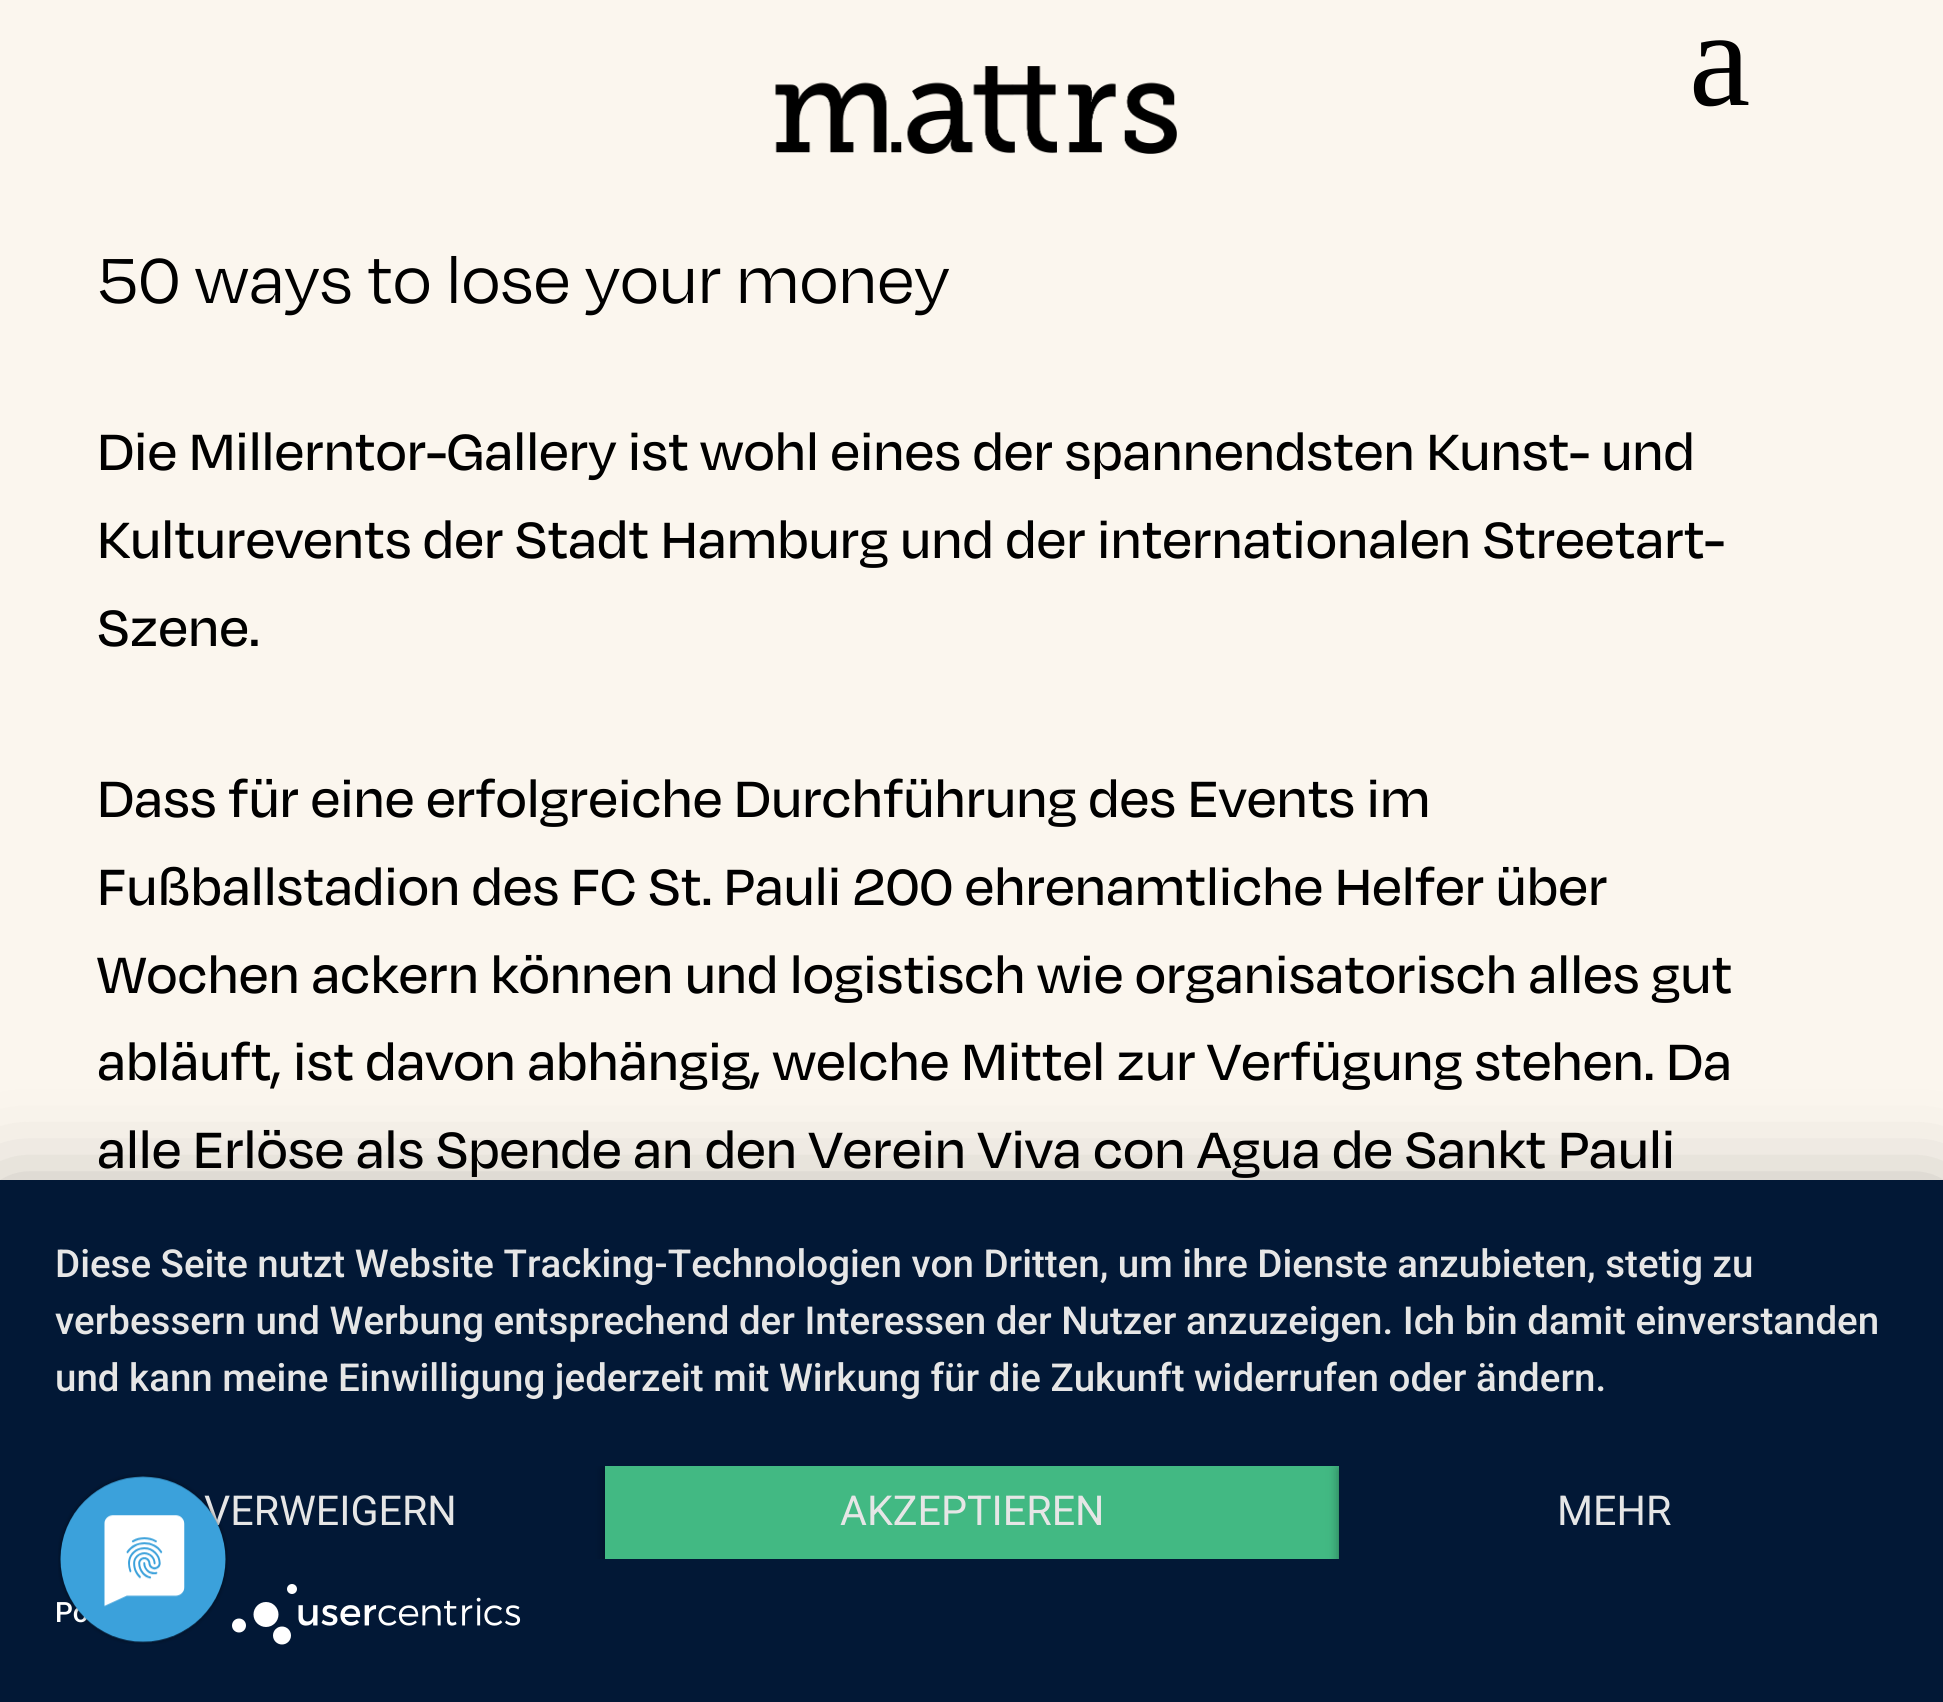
#include <cairo.h>
#include <math.h>
#include <stddef.h>


static void set_color(cairo_t *cr, unsigned color) {
    cairo_set_source_rgb(cr, (color >> 16) / 255.0, (color >> 8 & 255) / 255.0, (color & 255) / 255.0);
}

static void draw_text(cairo_t *cr, double x, double y, const char *s, const char *family, double size, int italic, int bold, unsigned color) {
    cairo_select_font_face(cr, family, italic ? CAIRO_FONT_SLANT_ITALIC : CAIRO_FONT_SLANT_NORMAL,
        bold ? CAIRO_FONT_WEIGHT_BOLD : CAIRO_FONT_WEIGHT_NORMAL);
    cairo_set_font_size(cr, size);
    set_color(cr, color);
    cairo_move_to(cr, x, y);
    cairo_show_text(cr, s);
}

static void fill_rect(cairo_t *cr, double x, double y, double w, double h, unsigned color) {
    set_color(cr, color);
    cairo_rectangle(cr, x, y, w, h);
    cairo_fill(cr);
}

static void rounded_rect(cairo_t *cr, double x, double y, double w, double h, double r) {
    cairo_new_sub_path(cr);
    cairo_arc(cr, x + w - r, y + h - r, r, 0, M_PI / 2);
    cairo_arc(cr, x + r, y + h - r, r, M_PI / 2, M_PI);
    cairo_arc(cr, x + r, y + r, r, M_PI, 1.5 * M_PI);
    cairo_arc(cr, x + w - r, y + r, r, 1.5 * M_PI, 2 * M_PI);
    cairo_close_path(cr);
}

static void draw_shadow(cairo_t *cr, double x, double y, double w, double h, double r, double blur, double alpha) {
    cairo_push_group_with_content(cr, CAIRO_CONTENT_ALPHA);
    cairo_set_operator(cr, CAIRO_OPERATOR_SOURCE);
    for (int i = 15; i >= -15 && fmin(w, h) + blur * i / 3 > 0; i -= 2) {
        double e = blur * i / 6;
        cairo_set_source_rgba(cr, 0, 0, 0, alpha * erfc((i - 1) / 8.5) / 2);
        rounded_rect(cr, x - e, y - e, w + 2 * e, h + 2 * e, fmax(0, fmin(r + e + blur * .6, fmin(w, h) / 2 + e)));
        cairo_fill(cr);
    }
    cairo_pattern_t *soft = cairo_pop_group(cr);
    cairo_mask(cr, soft);
    cairo_pattern_destroy(soft);
}

static void draw_image(cairo_t *cr, const char *path, double x, double y, double w, double h) {
    cairo_surface_t *image = cairo_image_surface_create_from_png(path);
    cairo_save(cr);
    cairo_set_source_surface(cr, image, x, y);
    cairo_rectangle(cr, x, y, w, h);
    cairo_fill(cr);
    cairo_restore(cr);
    cairo_surface_destroy(image);
}

int main(void) {
    cairo_surface_t *surface = cairo_image_surface_create(CAIRO_FORMAT_RGB24, 1943, 1702);
    cairo_t *cr = cairo_create(surface);
    cairo_font_options_t *options = cairo_font_options_create();
    cairo_font_options_set_hint_metrics(options, CAIRO_HINT_METRICS_OFF);
    cairo_font_options_set_hint_style(options, CAIRO_HINT_STYLE_NONE);
    cairo_set_font_options(cr, options);
    cairo_set_miter_limit(cr, 4);
    set_color(cr, 0xFBF6EE);
    cairo_paint(cr);
    draw_image(cr, "assets/img1.png", 775, 66, 402, 88);
    draw_text(cr, 1689, 105, "a", "Liberation Serif", 138, 0, 0, 0x000000);
    draw_text(cr, 97, 303, "50 ways to lose your money", "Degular", 73.25, 0, 0, 0x000000);
    draw_text(cr, 97, 470, "Die Millerntor-Gallery ist wohl eines der spannendsten Kunst- und", "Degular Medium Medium", 58.7, 0, 0, 0x000000);
    draw_text(cr, 97, 558, "Kulturevents der Stadt Hamburg und der internationalen Streetart-", "Degular Medium Medium", 58.7, 0, 0, 0x000000);
    draw_text(cr, 97, 646, "Szene.", "Degular Medium Medium", 58.7, 0, 0, 0x000000);
    draw_text(cr, 97, 817, "Dass für eine erfolgreiche Durchführung des Events im", "Degular Medium Medium", 58.7, 0, 0, 0x000000);
    draw_text(cr, 97, 905, "Fußballstadion des FC St. Pauli 200 ehrenamtliche Helfer über", "Degular Medium Medium", 58.7, 0, 0, 0x000000);
    draw_text(cr, 97, 993, "Wochen ackern können und logistisch wie organisatorisch alles gut", "Degular Medium Medium", 58.7, 0, 0, 0x000000);
    draw_text(cr, 97, 1080, "abläuft, ist davon abhängig, welche Mittel zur Verfügung stehen. Da", "Degular Medium Medium", 58.7, 0, 0, 0x000000);
    draw_text(cr, 97, 1168, "alle Erlöse als Spende an den Verein Viva con Agua de Sankt Pauli", "Degular Medium Medium", 58.7, 0, 0, 0x000000);
    set_color(cr, 0x000000);
    draw_shadow(cr, 0, 1196, 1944, 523, 0, 49.5, 0.3);
    fill_rect(cr, 0, 1180, 1943, 522, 0x021836);
    draw_text(cr, 55, 1277, "Diese Seite nutzt Website Tracking-Technologien von Dritten, um ihre Dienste anzubieten, stetig zu", "Roboto Medium", 38.5, 0, 0, 0xE6E6E6);
    draw_text(cr, 55, 1334, "verbessern und Werbung entsprechend der Interessen der Nutzer anzuzeigen. Ich bin damit einverstanden", "Roboto Medium", 38.5, 0, 0, 0xE6E6E6);
    draw_text(cr, 55, 1391, "und kann meine Einwilligung jederzeit mit Wirkung für die Zukunft widerrufen oder ändern.", "Roboto Medium", 38.5, 0, 0, 0xE6E6E6);
    draw_text(cr, 204, 1525, "VERWEIGERN", "Roboto", 41.25, 0, 0, 0xE6E6E6);
    cairo_save(cr);
    cairo_rectangle(cr, 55, 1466, 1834, 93);
    cairo_clip(cr);
    set_color(cr, 0x000000);
    draw_shadow(cr, 605, 1469, 734, 93, 0, 5.5, 0.4);
    cairo_restore(cr);
    fill_rect(cr, 605, 1466, 734, 93, 0x42B983);
    draw_text(cr, 840, 1525, "AKZEPTIEREN", "Roboto", 41.25, 0, 0, 0xE6E6E6);
    cairo_save(cr);
    cairo_rectangle(cr, 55, 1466, 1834, 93);
    cairo_clip(cr);
    set_color(cr, 0x000000);
    draw_shadow(cr, 1339, 1469, 550, 93, 0, 5.5, 0.4);
    cairo_restore(cr);
    fill_rect(cr, 1339, 1466, 550, 93, 0x021836);
    draw_text(cr, 1557, 1525, "MEHR", "Roboto", 41.25, 0, 0, 0xE6E6E6);
    draw_text(cr, 55, 1622, "Po", "Roboto Medium", 28, 0, 0, 0xFFFFFF);
    draw_image(cr, "assets/img2.png", 232, 1584, 289, 61);
    draw_image(cr, "assets/img3.png", 58, 1474, 170, 170);
    cairo_surface_write_to_png(surface, "output.png");
    cairo_font_options_destroy(options);
    cairo_destroy(cr);
    cairo_surface_destroy(surface);
    return 0;
}
